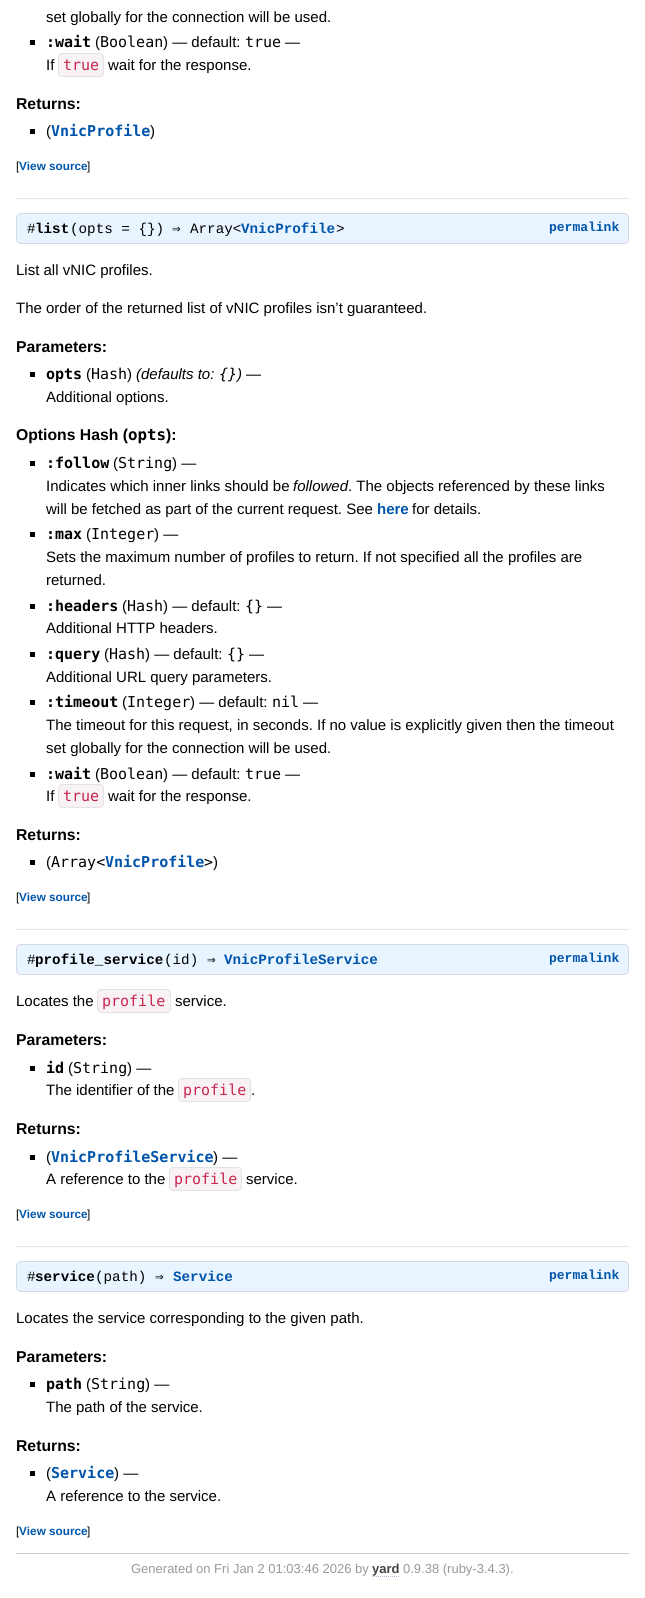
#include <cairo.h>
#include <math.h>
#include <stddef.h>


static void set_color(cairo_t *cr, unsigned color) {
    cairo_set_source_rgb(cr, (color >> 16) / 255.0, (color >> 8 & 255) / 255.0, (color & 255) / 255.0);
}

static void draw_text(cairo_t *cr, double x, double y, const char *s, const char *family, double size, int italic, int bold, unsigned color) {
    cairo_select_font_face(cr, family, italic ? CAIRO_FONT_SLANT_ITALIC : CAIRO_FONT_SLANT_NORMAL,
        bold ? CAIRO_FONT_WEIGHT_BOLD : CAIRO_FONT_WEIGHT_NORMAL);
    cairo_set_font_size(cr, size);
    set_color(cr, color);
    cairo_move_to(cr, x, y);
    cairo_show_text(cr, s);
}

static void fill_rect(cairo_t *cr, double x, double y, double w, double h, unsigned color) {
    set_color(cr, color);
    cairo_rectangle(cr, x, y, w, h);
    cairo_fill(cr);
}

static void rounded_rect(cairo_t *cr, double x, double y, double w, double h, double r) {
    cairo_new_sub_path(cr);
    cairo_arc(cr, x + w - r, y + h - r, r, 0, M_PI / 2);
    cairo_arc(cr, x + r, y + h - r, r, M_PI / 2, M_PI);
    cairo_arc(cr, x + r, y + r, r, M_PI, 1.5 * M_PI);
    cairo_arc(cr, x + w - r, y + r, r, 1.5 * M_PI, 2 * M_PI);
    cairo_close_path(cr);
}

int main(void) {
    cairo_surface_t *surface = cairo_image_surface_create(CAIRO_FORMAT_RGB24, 645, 1598);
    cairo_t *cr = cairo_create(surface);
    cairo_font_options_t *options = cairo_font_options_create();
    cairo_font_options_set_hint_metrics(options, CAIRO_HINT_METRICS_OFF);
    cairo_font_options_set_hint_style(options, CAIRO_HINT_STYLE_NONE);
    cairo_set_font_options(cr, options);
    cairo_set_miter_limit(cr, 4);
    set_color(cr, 0xFFFFFF);
    cairo_paint(cr);
    draw_text(cr, 46, 22, "set globally for the connection will be used.", "Liberation Sans", 15, 0, 0, 0x000000);
    fill_rect(cr, 30, 40, 5, 5, 0x000000);
    draw_text(cr, 46, 47, ":wait", "DejaVu Sans Mono", 15, 0, 1, 0x000000);
    draw_text(cr, 95, 47, "(", "Liberation Sans", 15, 0, 0, 0x000000);
    draw_text(cr, 100, 47, "Boolean", "DejaVu Sans Mono", 15, 0, 0, 0x000000);
    draw_text(cr, 163, 47, ") — default:", "Liberation Sans", 15, 0, 0, 0x000000);
    draw_text(cr, 245, 47, "true", "DejaVu Sans Mono", 15, 0, 0, 0x000000);
    draw_text(cr, 285, 47, "—", "Liberation Sans", 15, 0, 0, 0x000000);
    draw_text(cr, 46, 70, "If", "Liberation Sans", 15, 0, 0, 0x000000);
    set_color(cr, 0xF9F2F4);
    rounded_rect(cr, 58.5, 53.5, 45, 23, 3.5);
    cairo_fill_preserve(cr);
    set_color(cr, 0xE1E1E8);
    cairo_set_line_width(cr, 1);
    cairo_stroke(cr);
    draw_text(cr, 63, 70, "true", "DejaVu Sans Mono", 15, 0, 0, 0xC7254E);
    draw_text(cr, 108, 70, "wait for the response.", "Liberation Sans", 15, 0, 0, 0x000000);
    draw_text(cr, 16, 109, "Returns:", "Liberation Sans", 15.75, 0, 1, 0x000000);
    fill_rect(cr, 30, 129, 5, 5, 0x000000);
    draw_text(cr, 46, 136, "(", "Liberation Sans", 15, 0, 0, 0x000000);
    draw_text(cr, 51, 136, "VnicProfile", "DejaVu Sans Mono", 15, 0, 1, 0x0055AA);
    draw_text(cr, 150, 136, ")", "Liberation Sans", 15, 0, 0, 0x000000);
    draw_text(cr, 16, 170, "[", "Liberation Sans", 11.75, 0, 0, 0x000000);
    draw_text(cr, 19, 170, "View source", "Liberation Sans", 11.75, 0, 1, 0x0055AA);
    draw_text(cr, 87, 170, "]", "Liberation Sans", 11.75, 0, 0, 0x000000);
    cairo_new_path(cr);
    cairo_move_to(cr, 16, 198.5);
    cairo_line_to(cr, 629, 198.5);
    set_color(cr, 0xCCCCCC);
    cairo_set_dash(cr, (double[]){1, 1}, 2, 0);
    cairo_stroke(cr);
    set_color(cr, 0xE8F4FF);
    rounded_rect(cr, 16.5, 213.5, 612, 30, 4.5);
    cairo_fill_preserve(cr);
    set_color(cr, 0xD8D8E5);
    cairo_set_dash(cr, NULL, 0, 0);
    cairo_stroke(cr);
    draw_text(cr, 27, 233, "#", "Liberation Mono", 14.25, 0, 0, 0x000000);
    draw_text(cr, 35, 233, "list", "Liberation Mono", 14.25, 0, 1, 0x000000);
    draw_text(cr, 70, 233, "(opts = {})", "Liberation Mono", 14.25, 0, 0, 0x000000);
    draw_text(cr, 172, 233, "⇒", "DejaVu Sans Mono", 14.25, 0, 0, 0x000000);
    draw_text(cr, 190, 233, "Array<", "Liberation Mono", 14.25, 0, 0, 0x000000);
    draw_text(cr, 241, 233, "VnicProfile", "Liberation Mono", 14.25, 0, 1, 0x0055AA);
    draw_text(cr, 336, 233, ">", "Liberation Mono", 14.25, 0, 0, 0x000000);
    draw_text(cr, 549, 231, "permalink", "Liberation Mono", 13, 0, 1, 0x0055AA);
    draw_text(cr, 16, 275, "List all vNIC profiles.", "Liberation Sans", 15, 0, 0, 0x000000);
    draw_text(cr, 16, 313, "The order of the returned list of vNIC profiles isn’t guaranteed.", "Liberation Sans", 15, 0, 0, 0x000000);
    draw_text(cr, 16, 352, "Parameters:", "Liberation Sans", 15.75, 0, 1, 0x000000);
    fill_rect(cr, 30, 372, 5, 5, 0x000000);
    draw_text(cr, 46, 379, "opts", "DejaVu Sans Mono", 15, 0, 1, 0x000000);
    draw_text(cr, 86, 379, "(", "Liberation Sans", 15, 0, 0, 0x000000);
    draw_text(cr, 91, 379, "Hash", "DejaVu Sans Mono", 15, 0, 0, 0x000000);
    draw_text(cr, 127, 379, ")", "Liberation Sans", 15, 0, 0, 0x000000);
    draw_text(cr, 136, 379, "(defaults to:", "Liberation Sans", 15, 1, 0, 0x000000);
    draw_text(cr, 219, 379, "{}", "DejaVu Sans Mono", 15, 1, 0, 0x000000);
    draw_text(cr, 237, 379, ")", "Liberation Sans", 15, 1, 0, 0x000000);
    draw_text(cr, 246, 379, "—", "Liberation Sans", 15, 0, 0, 0x000000);
    draw_text(cr, 46, 402, "Additional options.", "Liberation Sans", 15, 0, 0, 0x000000);
    draw_text(cr, 16, 440, "Options Hash (", "Liberation Sans", 15.75, 0, 1, 0x000000);
    draw_text(cr, 128, 440, "opts", "DejaVu Sans Mono", 15.75, 0, 1, 0x000000);
    draw_text(cr, 166, 440, "):", "Liberation Sans", 15.75, 0, 1, 0x000000);
    fill_rect(cr, 30, 461, 5, 5, 0x000000);
    draw_text(cr, 46, 468, ":follow", "DejaVu Sans Mono", 15, 0, 1, 0x000000);
    draw_text(cr, 113, 468, "(", "Liberation Sans", 15, 0, 0, 0x000000);
    draw_text(cr, 118, 468, "String", "DejaVu Sans Mono", 15, 0, 0, 0x000000);
    draw_text(cr, 172, 468, ") —", "Liberation Sans", 15, 0, 0, 0x000000);
    draw_text(cr, 46, 491, "Indicates which inner links should be", "Liberation Sans", 15, 0, 0, 0x000000);
    draw_text(cr, 293, 491, "followed", "Liberation Sans", 15, 1, 0, 0x000000);
    draw_text(cr, 348, 491, ". The objects referenced by these links", "Liberation Sans", 15, 0, 0, 0x000000);
    draw_text(cr, 46, 514, "will be fetched as part of the current request. See", "Liberation Sans", 15, 0, 0, 0x000000);
    draw_text(cr, 377, 514, "here", "Liberation Sans", 15, 0, 1, 0x0055AA);
    draw_text(cr, 412, 514, "for details.", "Liberation Sans", 15, 0, 0, 0x000000);
    fill_rect(cr, 30, 532, 5, 5, 0x000000);
    draw_text(cr, 46, 539, ":max", "DejaVu Sans Mono", 15, 0, 1, 0x000000);
    draw_text(cr, 86, 539, "(", "Liberation Sans", 15, 0, 0, 0x000000);
    draw_text(cr, 91, 539, "Integer", "DejaVu Sans Mono", 15, 0, 0, 0x000000);
    draw_text(cr, 154, 539, ") —", "Liberation Sans", 15, 0, 0, 0x000000);
    draw_text(cr, 46, 562, "Sets the maximum number of profiles to return. If not specified all the profiles are", "Liberation Sans", 15, 0, 0, 0x000000);
    draw_text(cr, 46, 585, "returned.", "Liberation Sans", 15, 0, 0, 0x000000);
    fill_rect(cr, 30, 604, 5, 5, 0x000000);
    draw_text(cr, 46, 611, ":headers", "DejaVu Sans Mono", 15, 0, 1, 0x000000);
    draw_text(cr, 122, 611, "(", "Liberation Sans", 15, 0, 0, 0x000000);
    draw_text(cr, 127, 611, "Hash", "DejaVu Sans Mono", 15, 0, 0, 0x000000);
    draw_text(cr, 163, 611, ") — default:", "Liberation Sans", 15, 0, 0, 0x000000);
    draw_text(cr, 245, 611, "{}", "DejaVu Sans Mono", 15, 0, 0, 0x000000);
    draw_text(cr, 267, 611, "—", "Liberation Sans", 15, 0, 0, 0x000000);
    draw_text(cr, 46, 633, "Additional HTTP headers.", "Liberation Sans", 15, 0, 0, 0x000000);
    fill_rect(cr, 30, 652, 5, 5, 0x000000);
    draw_text(cr, 46, 659, ":query", "DejaVu Sans Mono", 15, 0, 1, 0x000000);
    draw_text(cr, 104, 659, "(", "Liberation Sans", 15, 0, 0, 0x000000);
    draw_text(cr, 109, 659, "Hash", "DejaVu Sans Mono", 15, 0, 0, 0x000000);
    draw_text(cr, 145, 659, ") — default:", "Liberation Sans", 15, 0, 0, 0x000000);
    draw_text(cr, 227, 659, "{}", "DejaVu Sans Mono", 15, 0, 0, 0x000000);
    draw_text(cr, 249, 659, "—", "Liberation Sans", 15, 0, 0, 0x000000);
    draw_text(cr, 46, 682, "Additional URL query parameters.", "Liberation Sans", 15, 0, 0, 0x000000);
    fill_rect(cr, 30, 700, 5, 5, 0x000000);
    draw_text(cr, 46, 707, ":timeout", "DejaVu Sans Mono", 15, 0, 1, 0x000000);
    draw_text(cr, 122, 707, "(", "Liberation Sans", 15, 0, 0, 0x000000);
    draw_text(cr, 127, 707, "Integer", "DejaVu Sans Mono", 15, 0, 0, 0x000000);
    draw_text(cr, 190, 707, ") — default:", "Liberation Sans", 15, 0, 0, 0x000000);
    draw_text(cr, 272, 707, "nil", "DejaVu Sans Mono", 15, 0, 0, 0x000000);
    draw_text(cr, 303, 707, "—", "Liberation Sans", 15, 0, 0, 0x000000);
    draw_text(cr, 46, 730, "The timeout for this request, in seconds. If no value is explicitly given then the timeout", "Liberation Sans", 15, 0, 0, 0x000000);
    draw_text(cr, 46, 753, "set globally for the connection will be used.", "Liberation Sans", 15, 0, 0, 0x000000);
    fill_rect(cr, 30, 772, 5, 5, 0x000000);
    draw_text(cr, 46, 779, ":wait", "DejaVu Sans Mono", 15, 0, 1, 0x000000);
    draw_text(cr, 95, 779, "(", "Liberation Sans", 15, 0, 0, 0x000000);
    draw_text(cr, 100, 779, "Boolean", "DejaVu Sans Mono", 15, 0, 0, 0x000000);
    draw_text(cr, 163, 779, ") — default:", "Liberation Sans", 15, 0, 0, 0x000000);
    draw_text(cr, 245, 779, "true", "DejaVu Sans Mono", 15, 0, 0, 0x000000);
    draw_text(cr, 285, 779, "—", "Liberation Sans", 15, 0, 0, 0x000000);
    draw_text(cr, 46, 801, "If", "Liberation Sans", 15, 0, 0, 0x000000);
    set_color(cr, 0xF9F2F4);
    rounded_rect(cr, 58.5, 784.5, 45, 23, 3.5);
    cairo_fill_preserve(cr);
    set_color(cr, 0xE1E1E8);
    cairo_stroke(cr);
    draw_text(cr, 63, 801, "true", "DejaVu Sans Mono", 15, 0, 0, 0xC7254E);
    draw_text(cr, 108, 801, "wait for the response.", "Liberation Sans", 15, 0, 0, 0x000000);
    draw_text(cr, 16, 840, "Returns:", "Liberation Sans", 15.75, 0, 1, 0x000000);
    fill_rect(cr, 30, 860, 5, 5, 0x000000);
    draw_text(cr, 46, 867, "(", "Liberation Sans", 15, 0, 0, 0x000000);
    draw_text(cr, 51, 867, "Array<", "DejaVu Sans Mono", 15, 0, 0, 0x000000);
    draw_text(cr, 105, 867, "VnicProfile", "DejaVu Sans Mono", 15, 0, 1, 0x0055AA);
    draw_text(cr, 204, 867, ">", "DejaVu Sans Mono", 15, 0, 0, 0x000000);
    draw_text(cr, 213, 867, ")", "Liberation Sans", 15, 0, 0, 0x000000);
    draw_text(cr, 16, 901, "[", "Liberation Sans", 11.75, 0, 0, 0x000000);
    draw_text(cr, 19, 901, "View source", "Liberation Sans", 11.75, 0, 1, 0x0055AA);
    draw_text(cr, 87, 901, "]", "Liberation Sans", 11.75, 0, 0, 0x000000);
    cairo_new_path(cr);
    cairo_move_to(cr, 16, 929.5);
    cairo_line_to(cr, 629, 929.5);
    set_color(cr, 0xCCCCCC);
    cairo_set_dash(cr, (double[]){1, 1}, 2, 0);
    cairo_stroke(cr);
    set_color(cr, 0xE8F4FF);
    rounded_rect(cr, 16.5, 944.5, 612, 30, 4.5);
    cairo_fill_preserve(cr);
    set_color(cr, 0xD8D8E5);
    cairo_set_dash(cr, NULL, 0, 0);
    cairo_stroke(cr);
    draw_text(cr, 27, 964, "#", "Liberation Mono", 14.25, 0, 0, 0x000000);
    draw_text(cr, 35, 964, "profile_service", "Liberation Mono", 14.25, 0, 1, 0x000000);
    draw_text(cr, 164, 964, "(id)", "Liberation Mono", 14.25, 0, 0, 0x000000);
    draw_text(cr, 207, 964, "⇒", "DejaVu Sans Mono", 14.25, 0, 0, 0x000000);
    draw_text(cr, 224, 964, "VnicProfileService", "Liberation Mono", 14.25, 0, 1, 0x0055AA);
    draw_text(cr, 549, 962, "permalink", "Liberation Mono", 13, 0, 1, 0x0055AA);
    draw_text(cr, 16, 1006, "Locates the", "Liberation Sans", 15, 0, 0, 0x000000);
    set_color(cr, 0xF9F2F4);
    rounded_rect(cr, 97.5, 989.5, 73, 23, 3.5);
    cairo_fill_preserve(cr);
    set_color(cr, 0xE1E1E8);
    cairo_stroke(cr);
    draw_text(cr, 102, 1006, "profile", "DejaVu Sans Mono", 15, 0, 0, 0xC7254E);
    draw_text(cr, 175, 1006, "service.", "Liberation Sans", 15, 0, 0, 0x000000);
    draw_text(cr, 16, 1045, "Parameters:", "Liberation Sans", 15.75, 0, 1, 0x000000);
    fill_rect(cr, 30, 1066, 5, 5, 0x000000);
    draw_text(cr, 46, 1073, "id", "DejaVu Sans Mono", 15, 0, 1, 0x000000);
    draw_text(cr, 68, 1073, "(", "Liberation Sans", 15, 0, 0, 0x000000);
    draw_text(cr, 73, 1073, "String", "DejaVu Sans Mono", 15, 0, 0, 0x000000);
    draw_text(cr, 127, 1073, ") —", "Liberation Sans", 15, 0, 0, 0x000000);
    draw_text(cr, 46, 1095, "The identifier of the", "Liberation Sans", 15, 0, 0, 0x000000);
    set_color(cr, 0xF9F2F4);
    rounded_rect(cr, 178.5, 1078.5, 72, 23, 3.5);
    cairo_fill_preserve(cr);
    set_color(cr, 0xE1E1E8);
    cairo_stroke(cr);
    draw_text(cr, 183, 1095, "profile", "DejaVu Sans Mono", 15, 0, 0, 0xC7254E);
    draw_text(cr, 251, 1095, ".", "Liberation Sans", 15, 0, 0, 0x000000);
    draw_text(cr, 16, 1134, "Returns:", "Liberation Sans", 15.75, 0, 1, 0x000000);
    fill_rect(cr, 30, 1155, 5, 5, 0x000000);
    draw_text(cr, 46, 1162, "(", "Liberation Sans", 15, 0, 0, 0x000000);
    draw_text(cr, 51, 1162, "VnicProfileService", "DejaVu Sans Mono", 15, 0, 1, 0x0055AA);
    draw_text(cr, 213, 1162, ") —", "Liberation Sans", 15, 0, 0, 0x000000);
    draw_text(cr, 46, 1184, "A reference to the", "Liberation Sans", 15, 0, 0, 0x000000);
    set_color(cr, 0xF9F2F4);
    rounded_rect(cr, 169.5, 1167.5, 72, 23, 3.5);
    cairo_fill_preserve(cr);
    set_color(cr, 0xE1E1E8);
    cairo_stroke(cr);
    draw_text(cr, 174, 1184, "profile", "DejaVu Sans Mono", 15, 0, 0, 0xC7254E);
    draw_text(cr, 246, 1184, "service.", "Liberation Sans", 15, 0, 0, 0x000000);
    draw_text(cr, 16, 1218, "[", "Liberation Sans", 11.75, 0, 0, 0x000000);
    draw_text(cr, 19, 1218, "View source", "Liberation Sans", 11.75, 0, 1, 0x0055AA);
    draw_text(cr, 87, 1218, "]", "Liberation Sans", 11.75, 0, 0, 0x000000);
    cairo_new_path(cr);
    cairo_move_to(cr, 16, 1246.5);
    cairo_line_to(cr, 629, 1246.5);
    set_color(cr, 0xCCCCCC);
    cairo_set_dash(cr, (double[]){1, 1}, 2, 0);
    cairo_stroke(cr);
    set_color(cr, 0xE8F4FF);
    rounded_rect(cr, 16.5, 1261.5, 612, 30, 4.5);
    cairo_fill_preserve(cr);
    set_color(cr, 0xD8D8E5);
    cairo_set_dash(cr, NULL, 0, 0);
    cairo_stroke(cr);
    draw_text(cr, 27, 1281, "#", "Liberation Mono", 14.25, 0, 0, 0x000000);
    draw_text(cr, 35, 1281, "service", "Liberation Mono", 14.25, 0, 1, 0x000000);
    draw_text(cr, 95, 1281, "(path)", "Liberation Mono", 14.25, 0, 0, 0x000000);
    draw_text(cr, 155, 1281, "⇒", "DejaVu Sans Mono", 14.25, 0, 0, 0x000000);
    draw_text(cr, 173, 1281, "Service", "Liberation Mono", 14.25, 0, 1, 0x0055AA);
    draw_text(cr, 549, 1279, "permalink", "Liberation Mono", 13, 0, 1, 0x0055AA);
    draw_text(cr, 16, 1323, "Locates the service corresponding to the given path.", "Liberation Sans", 15, 0, 0, 0x000000);
    draw_text(cr, 16, 1362, "Parameters:", "Liberation Sans", 15.75, 0, 1, 0x000000);
    fill_rect(cr, 30, 1382, 5, 5, 0x000000);
    draw_text(cr, 46, 1389, "path", "DejaVu Sans Mono", 15, 0, 1, 0x000000);
    draw_text(cr, 86, 1389, "(", "Liberation Sans", 15, 0, 0, 0x000000);
    draw_text(cr, 91, 1389, "String", "DejaVu Sans Mono", 15, 0, 0, 0x000000);
    draw_text(cr, 145, 1389, ") —", "Liberation Sans", 15, 0, 0, 0x000000);
    draw_text(cr, 46, 1412, "The path of the service.", "Liberation Sans", 15, 0, 0, 0x000000);
    draw_text(cr, 16, 1451, "Returns:", "Liberation Sans", 15.75, 0, 1, 0x000000);
    fill_rect(cr, 30, 1471, 5, 5, 0x000000);
    draw_text(cr, 46, 1478, "(", "Liberation Sans", 15, 0, 0, 0x000000);
    draw_text(cr, 51, 1478, "Service", "DejaVu Sans Mono", 15, 0, 1, 0x0055AA);
    draw_text(cr, 114, 1478, ") —", "Liberation Sans", 15, 0, 0, 0x000000);
    draw_text(cr, 46, 1501, "A reference to the service.", "Liberation Sans", 15, 0, 0, 0x000000);
    draw_text(cr, 16, 1535, "[", "Liberation Sans", 11.75, 0, 0, 0x000000);
    draw_text(cr, 19, 1535, "View source", "Liberation Sans", 11.75, 0, 1, 0x0055AA);
    draw_text(cr, 87, 1535, "]", "Liberation Sans", 11.75, 0, 0, 0x000000);
    fill_rect(cr, 16, 1553, 613, 1, 0xCCCCCC);
    draw_text(cr, 131, 1573, "Generated on Fri Jan 2 01:03:46 2026 by", "Liberation Sans", 13, 0, 0, 0x999999);
    draw_text(cr, 372, 1573, "yard", "Liberation Sans", 13, 0, 1, 0x444444);
    cairo_new_path(cr);
    cairo_move_to(cr, 372, 1576.5);
    cairo_line_to(cr, 400, 1576.5);
    set_color(cr, 0xBBBBDD);
    cairo_set_dash(cr, (double[]){1, 1}, 2, 0);
    cairo_stroke(cr);
    draw_text(cr, 403, 1573, "0.9.38 (ruby-3.4.3).", "Liberation Sans", 13, 0, 0, 0x999999);
    cairo_surface_write_to_png(surface, "output.png");
    cairo_font_options_destroy(options);
    cairo_destroy(cr);
    cairo_surface_destroy(surface);
    return 0;
}
